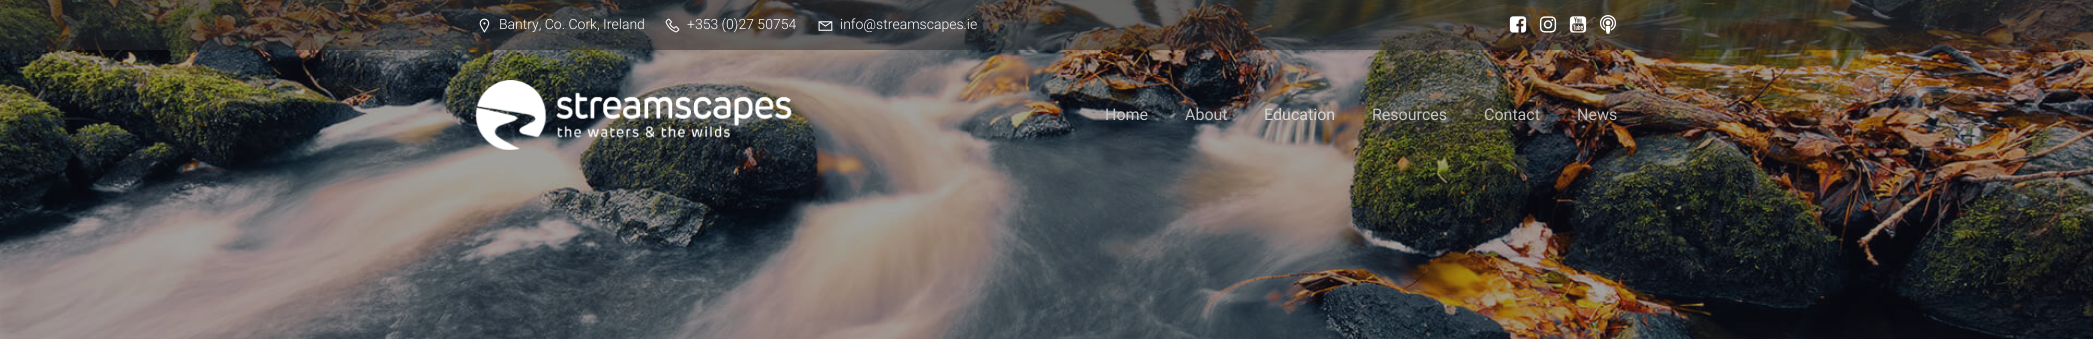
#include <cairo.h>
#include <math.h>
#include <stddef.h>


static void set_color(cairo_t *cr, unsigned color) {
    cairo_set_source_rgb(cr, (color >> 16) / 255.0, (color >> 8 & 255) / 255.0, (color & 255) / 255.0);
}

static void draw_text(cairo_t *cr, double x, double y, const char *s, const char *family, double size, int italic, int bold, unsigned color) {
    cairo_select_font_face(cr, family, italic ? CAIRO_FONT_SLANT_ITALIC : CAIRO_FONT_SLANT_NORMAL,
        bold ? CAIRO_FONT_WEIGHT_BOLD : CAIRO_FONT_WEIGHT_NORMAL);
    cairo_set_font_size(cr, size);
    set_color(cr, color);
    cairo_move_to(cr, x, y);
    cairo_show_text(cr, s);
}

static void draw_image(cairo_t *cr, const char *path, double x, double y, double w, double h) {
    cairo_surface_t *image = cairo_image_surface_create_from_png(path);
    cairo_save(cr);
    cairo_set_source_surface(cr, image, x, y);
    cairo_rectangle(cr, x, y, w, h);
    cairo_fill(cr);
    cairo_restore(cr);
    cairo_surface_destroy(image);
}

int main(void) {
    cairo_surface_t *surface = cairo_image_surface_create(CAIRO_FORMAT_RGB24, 2093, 339);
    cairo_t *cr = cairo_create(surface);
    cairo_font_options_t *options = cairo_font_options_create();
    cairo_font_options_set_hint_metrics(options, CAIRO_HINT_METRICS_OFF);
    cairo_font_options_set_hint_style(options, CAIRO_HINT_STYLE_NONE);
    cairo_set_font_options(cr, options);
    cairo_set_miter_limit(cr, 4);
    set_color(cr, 0xFFFFFF);
    cairo_paint(cr);
    draw_image(cr, "assets/img1.png", 0, 0, 2093, 339);
    cairo_set_source_rgba(cr, 0.153, 0.157, 0.165, 0.5);
    cairo_rectangle(cr, 0, 0, 2093, 50);
    cairo_fill(cr);
    draw_image(cr, "assets/img2.png", 479, 18, 11, 15);
    draw_text(cr, 499, 29, "Bantry, Co. Cork, Ireland", "Roboto Light", 14, 0, 0, 0xFFFFFF);
    draw_image(cr, "assets/img3.png", 665, 18, 15, 15);
    draw_text(cr, 687, 29, "+353 (0)27 50754", "Roboto Light", 14, 0, 0, 0xFFFFFF);
    draw_image(cr, "assets/img4.png", 818, 21, 15, 10);
    draw_text(cr, 840, 29, "info@streamscapes.ie", "Roboto Light", 14, 0, 0, 0xFFFFFF);
    draw_image(cr, "assets/img5.png", 1509, 16, 18, 17);
    draw_image(cr, "assets/img6.png", 1539, 16, 18, 17);
    draw_image(cr, "assets/img7.png", 1569, 16, 18, 17);
    draw_image(cr, "assets/img8.png", 1599, 15, 18, 19);
    draw_image(cr, "assets/img9.png", 475, 80, 317, 70);
    draw_text(cr, 1105, 120, "Home", "Roboto", 16, 0, 0, 0xC8C9CB);
    draw_text(cr, 1185, 120, "About", "Roboto", 16, 0, 0, 0xC1C2C4);
    draw_text(cr, 1264, 120, "Education", "Roboto", 16, 0, 0, 0xD9D7D6);
    draw_text(cr, 1372, 120, "Resources", "Roboto", 16, 0, 0, 0xC7C7C4);
    draw_text(cr, 1484, 120, "Contact", "Roboto", 16, 0, 0, 0xC2C1BE);
    draw_text(cr, 1577, 120, "News", "Roboto", 16, 0, 0, 0xC2C1BE);
    cairo_surface_write_to_png(surface, "output.png");
    cairo_font_options_destroy(options);
    cairo_destroy(cr);
    cairo_surface_destroy(surface);
    return 0;
}
